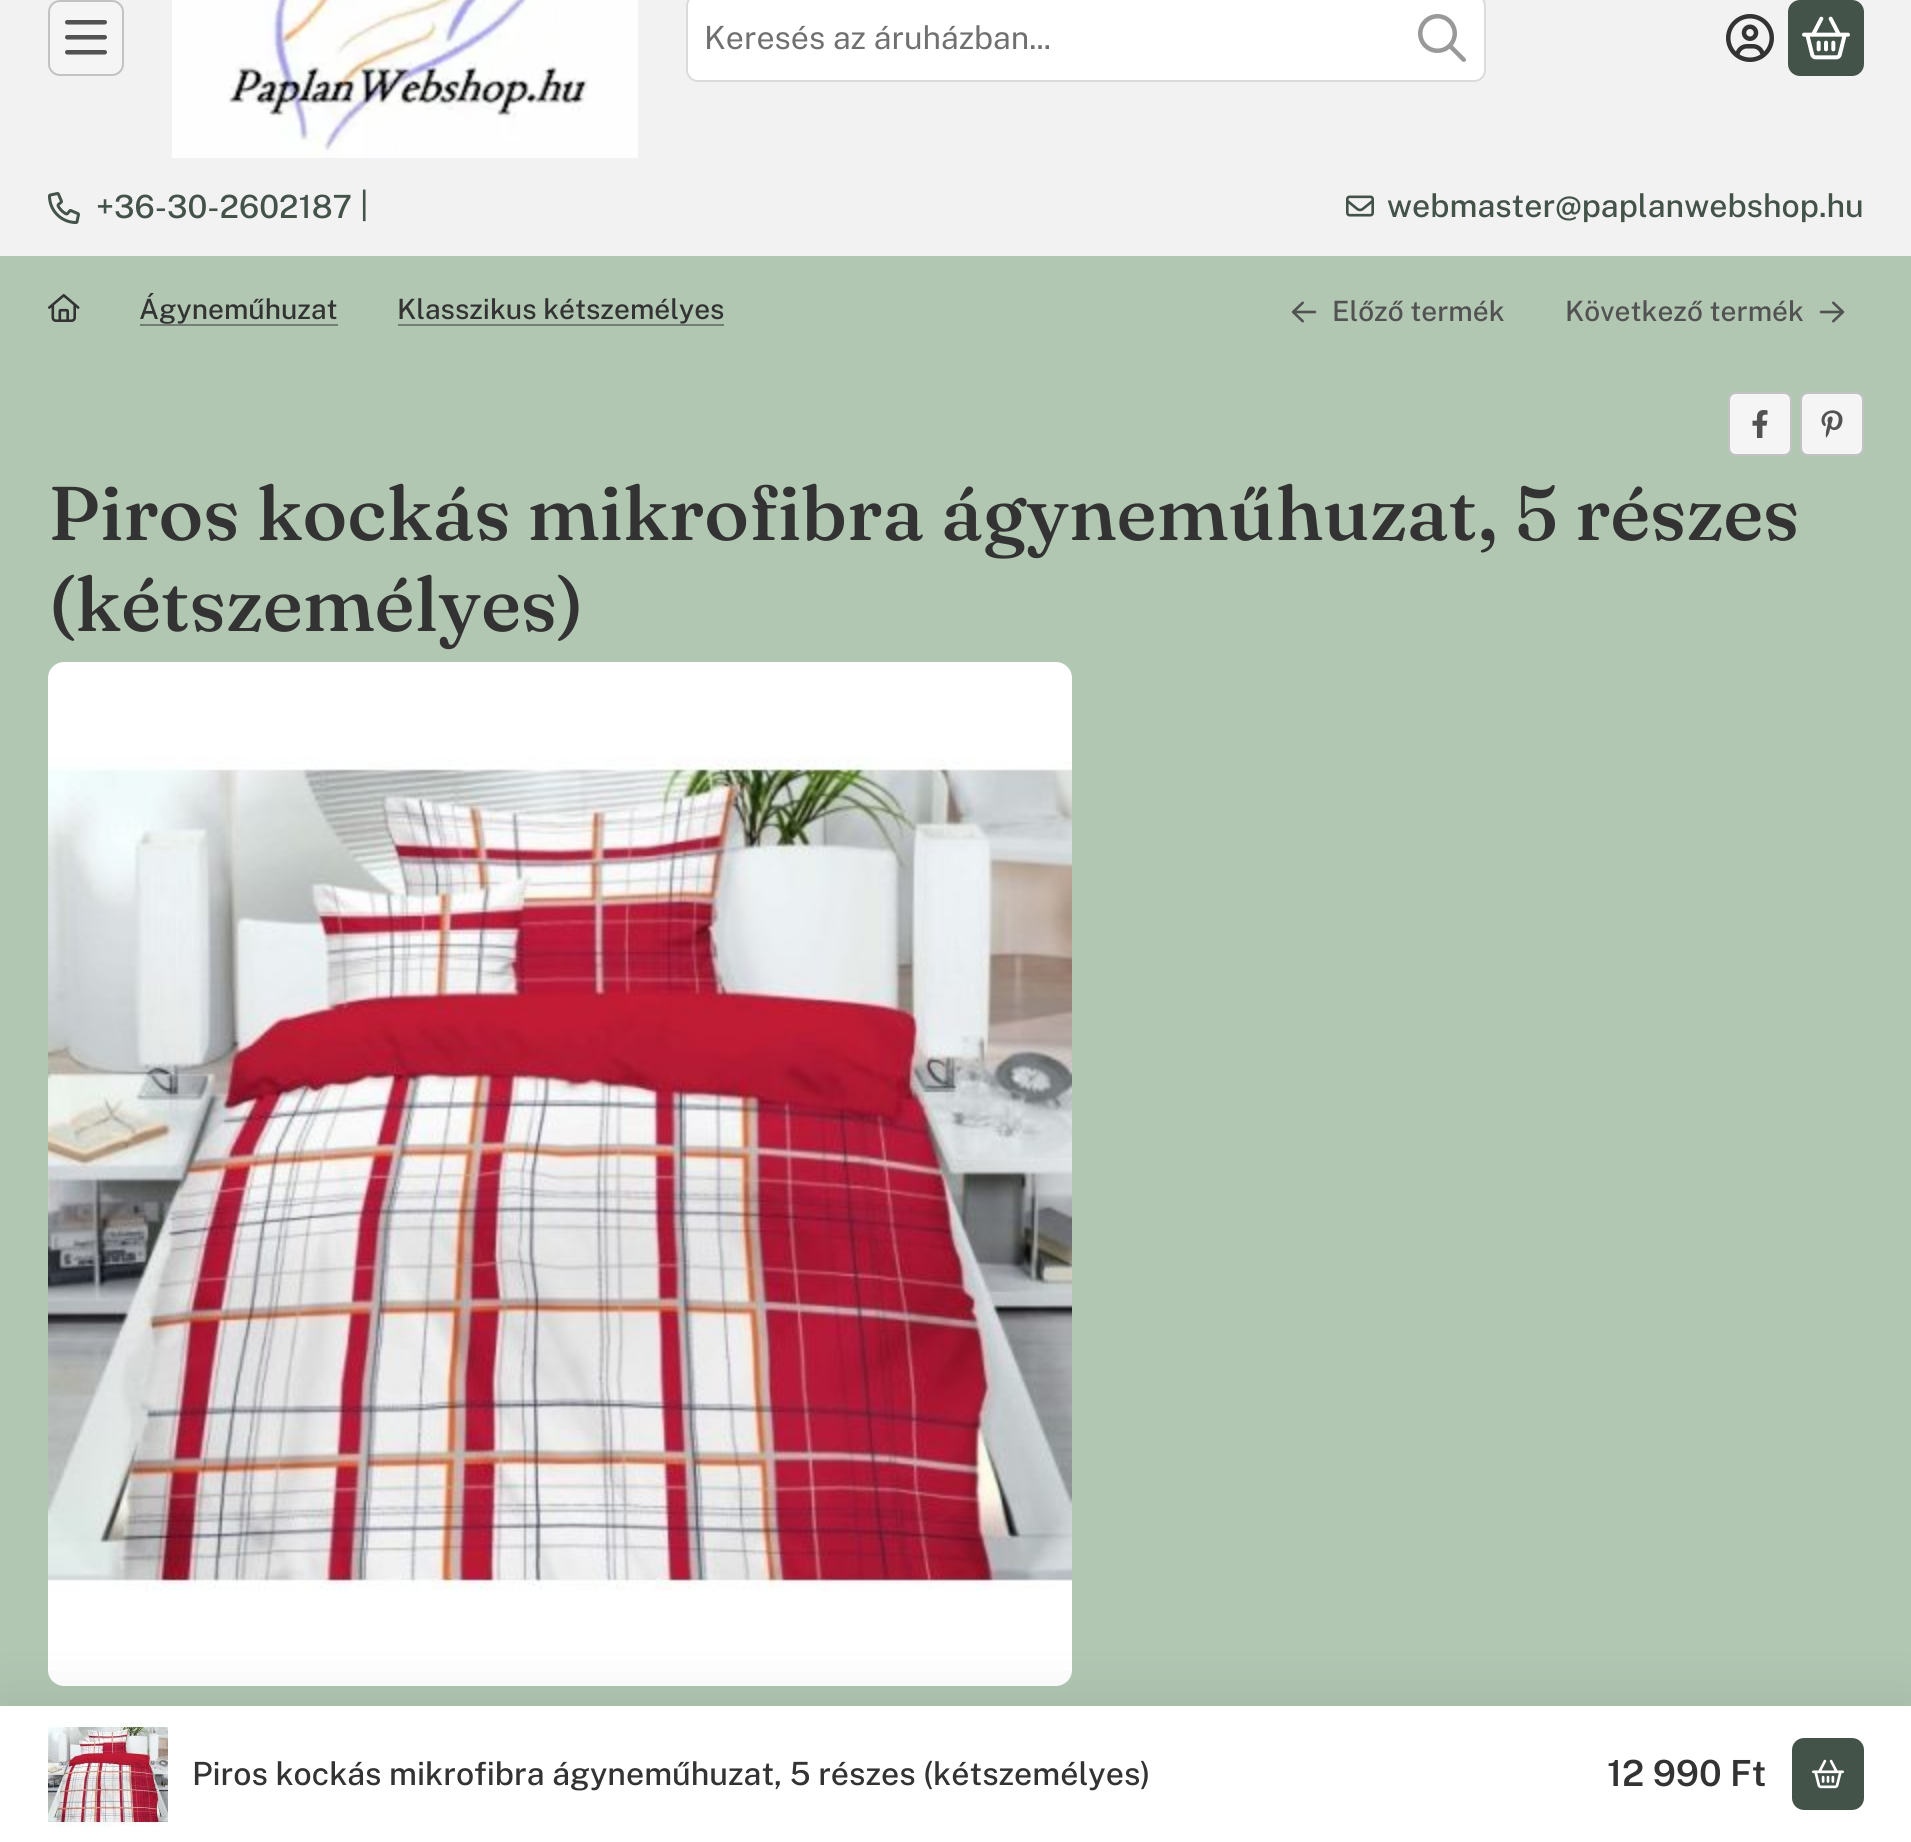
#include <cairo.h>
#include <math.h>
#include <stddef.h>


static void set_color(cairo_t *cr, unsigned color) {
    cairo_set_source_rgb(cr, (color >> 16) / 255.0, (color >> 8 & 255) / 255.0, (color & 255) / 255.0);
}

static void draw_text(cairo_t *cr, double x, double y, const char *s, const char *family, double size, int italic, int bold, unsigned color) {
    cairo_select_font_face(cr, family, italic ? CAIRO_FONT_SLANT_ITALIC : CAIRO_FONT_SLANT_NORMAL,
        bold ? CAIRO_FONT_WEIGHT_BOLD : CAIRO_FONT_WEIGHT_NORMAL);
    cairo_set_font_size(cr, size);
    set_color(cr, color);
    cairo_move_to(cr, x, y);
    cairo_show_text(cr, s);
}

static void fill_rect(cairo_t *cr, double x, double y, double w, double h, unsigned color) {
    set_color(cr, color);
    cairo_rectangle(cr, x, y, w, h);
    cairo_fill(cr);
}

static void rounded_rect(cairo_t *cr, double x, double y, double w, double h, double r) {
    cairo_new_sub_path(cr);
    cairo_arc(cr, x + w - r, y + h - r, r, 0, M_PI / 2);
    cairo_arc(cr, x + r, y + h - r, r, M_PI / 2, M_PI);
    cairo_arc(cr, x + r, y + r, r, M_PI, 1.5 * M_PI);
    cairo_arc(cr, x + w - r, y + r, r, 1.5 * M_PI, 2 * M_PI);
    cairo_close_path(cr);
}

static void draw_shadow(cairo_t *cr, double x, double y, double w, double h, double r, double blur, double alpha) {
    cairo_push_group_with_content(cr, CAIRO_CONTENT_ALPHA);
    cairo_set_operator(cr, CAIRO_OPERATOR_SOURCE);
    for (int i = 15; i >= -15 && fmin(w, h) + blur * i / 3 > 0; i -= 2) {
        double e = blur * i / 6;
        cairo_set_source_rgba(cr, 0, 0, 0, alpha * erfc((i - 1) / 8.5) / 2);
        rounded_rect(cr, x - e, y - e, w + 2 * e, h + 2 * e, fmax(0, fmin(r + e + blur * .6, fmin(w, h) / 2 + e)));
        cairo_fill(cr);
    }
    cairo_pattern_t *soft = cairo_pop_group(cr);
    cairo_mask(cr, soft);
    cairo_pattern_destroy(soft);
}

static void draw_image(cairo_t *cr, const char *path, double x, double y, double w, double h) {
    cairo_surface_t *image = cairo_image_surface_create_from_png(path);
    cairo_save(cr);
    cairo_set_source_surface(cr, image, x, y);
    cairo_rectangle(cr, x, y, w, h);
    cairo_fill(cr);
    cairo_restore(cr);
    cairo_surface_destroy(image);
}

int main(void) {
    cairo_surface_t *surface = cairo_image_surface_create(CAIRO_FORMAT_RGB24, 1911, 1842);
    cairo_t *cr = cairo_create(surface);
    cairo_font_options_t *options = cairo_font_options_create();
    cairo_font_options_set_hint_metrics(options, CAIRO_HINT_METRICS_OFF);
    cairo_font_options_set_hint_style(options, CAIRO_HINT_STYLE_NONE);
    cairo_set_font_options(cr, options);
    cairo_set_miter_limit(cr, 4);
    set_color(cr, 0xB1C7B2);
    cairo_paint(cr);
    fill_rect(cr, 0, 0, 1911, 256, 0xF2F2F2);
    set_color(cr, 0xF5F5F5);
    rounded_rect(cr, 49, 1, 74, 74, 11);
    cairo_fill_preserve(cr);
    set_color(cr, 0xC2C2C2);
    cairo_stroke(cr);
    draw_image(cr, "assets/img1.png", 65, 20, 42, 35);
    draw_image(cr, "assets/img2.png", 172, 0, 466, 158);
    set_color(cr, 0xFFFFFF);
    rounded_rect(cr, 687, -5, 798, 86, 11);
    cairo_fill_preserve(cr);
    set_color(cr, 0xDBDBDB);
    cairo_stroke(cr);
    draw_text(cr, 704, 49, "Keresés az áruházban...", "Public Sans", 32, 0, 0, 0x707070);
    draw_image(cr, "assets/img3.png", 1418, 14, 48, 48);
    draw_image(cr, "assets/img4.png", 1726, 14, 48, 48);
    set_color(cr, 0x435349);
    rounded_rect(cr, 1789, 1, 74, 74, 11);
    cairo_fill_preserve(cr);
    cairo_stroke(cr);
    draw_image(cr, "assets/img5.png", 1802, 16, 48, 44);
    draw_image(cr, "assets/img6.png", 48, 192, 32, 32);
    draw_text(cr, 96, 218, "+36-30-2602187", "Public Sans Medium", 32, 0, 0, 0x435349);
    draw_text(cr, 360, 216, "|", "Public Sans Medium", 32, 0, 0, 0x435349);
    draw_image(cr, "assets/img7.png", 1346, 195, 28, 22);
    draw_text(cr, 1387, 217, "webmaster@paplanwebshop.hu", "Public Sans Medium", 32, 0, 0, 0x435349);
    draw_image(cr, "assets/img8.png", 48, 294, 32, 28);
    draw_text(cr, 139, 319, "Ágyneműhuzat", "Public Sans Medium", 28, 0, 0, 0x333333);
    fill_rect(cr, 140, 324, 198, 2, 0x727D73);
    draw_text(cr, 397, 319, "Klasszikus kétszemélyes", "Public Sans Medium", 28, 0, 0, 0x333333);
    fill_rect(cr, 398, 324, 326, 2, 0x727D73);
    draw_image(cr, "assets/img9.png", 1291, 301, 26, 22);
    draw_text(cr, 1332, 321, "Előző termék", "Public Sans Medium", 28, 0, 0, 0x525252);
    draw_text(cr, 1565, 321, "Következő termék", "Public Sans Medium", 28, 0, 0, 0x525252);
    draw_image(cr, "assets/img10.png", 1819, 301, 26, 22);
    set_color(cr, 0xF5F5F5);
    rounded_rect(cr, 1729, 393, 62, 62, 7);
    cairo_fill_preserve(cr);
    set_color(cr, 0xC2C2C2);
    cairo_stroke(cr);
    draw_image(cr, "assets/img11.png", 1752, 410, 16, 28);
    set_color(cr, 0xF5F5F5);
    rounded_rect(cr, 1801, 393, 62, 62, 7);
    cairo_fill_preserve(cr);
    set_color(cr, 0xC2C2C2);
    cairo_stroke(cr);
    draw_image(cr, "assets/img12.png", 1821, 410, 22, 28);
    draw_text(cr, 48, 540, "Piros kockás mikrofibra ágyneműhuzat, 5 részes", "Fraunces Medium", 76, 0, 0, 0x333333);
    draw_text(cr, 48, 631, "(kétszemélyes)", "Fraunces Medium", 76, 0, 0, 0x333333);
    draw_image(cr, "assets/img13.png", 48, 662, 1024, 1024);
    set_color(cr, 0x000000);
    draw_shadow(cr, 0, 1706, 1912, 136, 0, 30, 0.1);
    fill_rect(cr, 0, 1706, 1911, 136, 0xFFFFFF);
    draw_image(cr, "assets/img14.png", 48, 1722, 120, 105);
    draw_text(cr, 192, 1785, "Piros kockás mikrofibra ágyneműhuzat, 5 részes (kétszemélyes)", "Public Sans Medium", 32, 0, 0, 0x333333);
    draw_text(cr, 1607, 1786, "12 990 Ft", "Public Sans SemiBold", 36, 0, 0, 0x333333);
    set_color(cr, 0x435349);
    rounded_rect(cr, 1793, 1739, 70, 70, 11);
    cairo_fill_preserve(cr);
    cairo_stroke(cr);
    draw_image(cr, "assets/img15.png", 1812, 1759, 32, 30);
    cairo_surface_write_to_png(surface, "output.png");
    cairo_font_options_destroy(options);
    cairo_destroy(cr);
    cairo_surface_destroy(surface);
    return 0;
}
